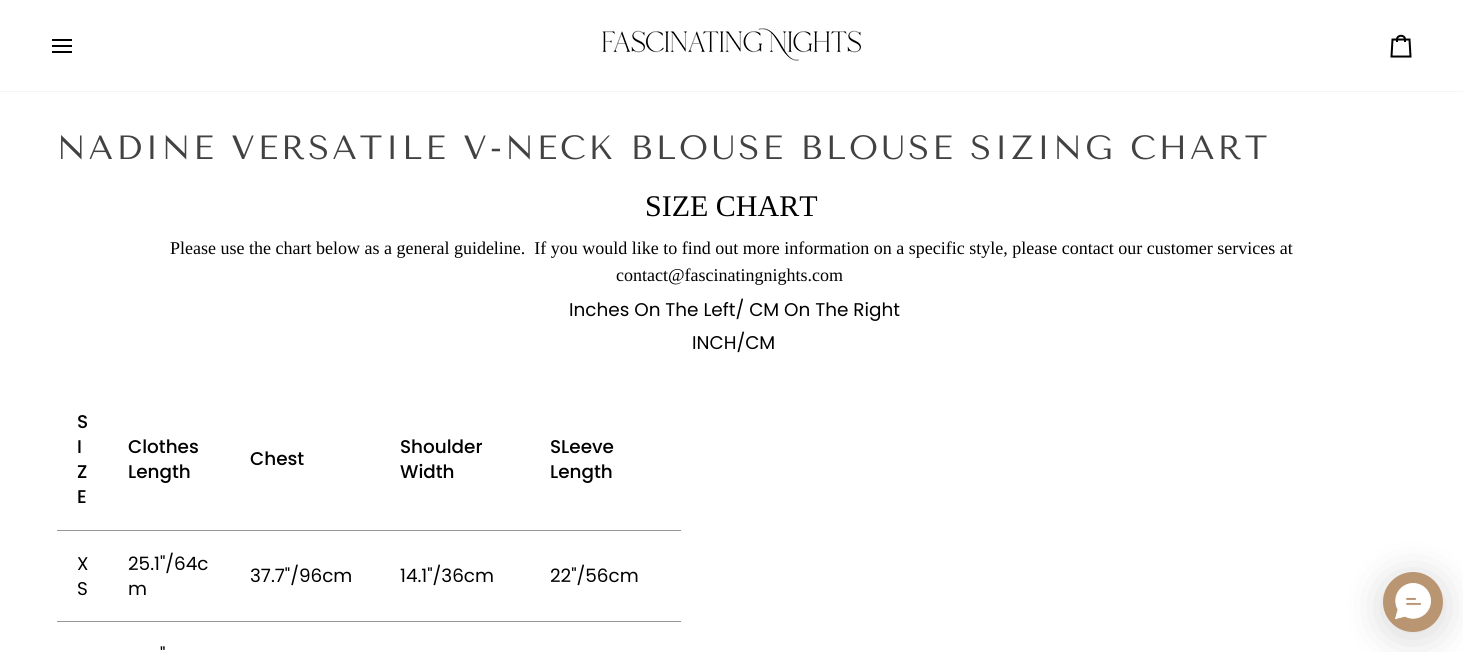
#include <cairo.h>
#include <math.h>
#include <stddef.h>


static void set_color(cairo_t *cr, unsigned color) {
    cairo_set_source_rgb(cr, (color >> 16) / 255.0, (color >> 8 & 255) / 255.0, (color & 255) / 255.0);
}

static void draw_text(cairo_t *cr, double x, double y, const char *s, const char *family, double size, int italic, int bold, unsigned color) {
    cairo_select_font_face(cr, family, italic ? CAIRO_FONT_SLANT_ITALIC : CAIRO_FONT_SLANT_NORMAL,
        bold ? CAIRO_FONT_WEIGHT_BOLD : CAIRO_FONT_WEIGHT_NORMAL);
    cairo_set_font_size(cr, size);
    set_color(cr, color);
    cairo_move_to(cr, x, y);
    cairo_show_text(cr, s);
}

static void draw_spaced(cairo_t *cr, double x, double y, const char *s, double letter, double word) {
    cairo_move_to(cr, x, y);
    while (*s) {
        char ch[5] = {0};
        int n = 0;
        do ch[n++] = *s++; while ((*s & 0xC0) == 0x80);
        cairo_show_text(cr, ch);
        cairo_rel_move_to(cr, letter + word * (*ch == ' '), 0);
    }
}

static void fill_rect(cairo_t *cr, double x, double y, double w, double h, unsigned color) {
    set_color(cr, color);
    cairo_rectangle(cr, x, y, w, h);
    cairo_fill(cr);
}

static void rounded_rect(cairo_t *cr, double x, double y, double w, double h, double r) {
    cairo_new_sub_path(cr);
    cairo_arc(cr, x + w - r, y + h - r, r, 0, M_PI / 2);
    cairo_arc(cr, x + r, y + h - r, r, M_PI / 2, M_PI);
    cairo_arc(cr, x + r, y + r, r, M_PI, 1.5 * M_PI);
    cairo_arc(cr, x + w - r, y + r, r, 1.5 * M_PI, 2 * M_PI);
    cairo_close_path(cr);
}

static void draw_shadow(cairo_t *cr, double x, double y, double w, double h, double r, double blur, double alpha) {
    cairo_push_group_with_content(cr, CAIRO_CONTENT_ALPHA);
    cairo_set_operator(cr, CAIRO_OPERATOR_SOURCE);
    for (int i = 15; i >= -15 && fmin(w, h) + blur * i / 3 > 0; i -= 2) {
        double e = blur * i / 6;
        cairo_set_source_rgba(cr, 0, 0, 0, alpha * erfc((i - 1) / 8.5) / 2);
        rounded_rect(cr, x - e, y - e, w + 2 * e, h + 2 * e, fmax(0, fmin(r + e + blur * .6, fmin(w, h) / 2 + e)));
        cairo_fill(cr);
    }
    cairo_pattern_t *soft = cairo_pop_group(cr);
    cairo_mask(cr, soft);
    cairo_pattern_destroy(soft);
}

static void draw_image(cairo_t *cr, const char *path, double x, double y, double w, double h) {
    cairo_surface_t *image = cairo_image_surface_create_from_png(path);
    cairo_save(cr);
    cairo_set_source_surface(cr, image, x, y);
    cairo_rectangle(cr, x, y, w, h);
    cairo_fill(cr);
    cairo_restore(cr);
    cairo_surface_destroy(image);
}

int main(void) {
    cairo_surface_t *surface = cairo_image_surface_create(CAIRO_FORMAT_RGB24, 1463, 652);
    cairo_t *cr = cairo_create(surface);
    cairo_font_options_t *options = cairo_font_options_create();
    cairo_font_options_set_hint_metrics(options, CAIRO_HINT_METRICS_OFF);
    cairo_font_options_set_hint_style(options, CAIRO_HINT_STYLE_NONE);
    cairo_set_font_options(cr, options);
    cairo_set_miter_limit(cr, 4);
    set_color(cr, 0xFFFFFF);
    cairo_paint(cr);
    fill_rect(cr, 0, 91, 1463, 1, 0xF7F5F4);
    cairo_new_path(cr);
    cairo_move_to(cr, 71, 40);
    cairo_line_to(cr, 53, 40);
    cairo_move_to(cr, 71, 46);
    cairo_line_to(cr, 53, 46);
    cairo_move_to(cr, 71, 52);
    cairo_line_to(cr, 53, 52);
    set_color(cr, 0x000000);
    cairo_set_line_cap(cr, CAIRO_LINE_CAP_SQUARE);
    cairo_stroke(cr);
    draw_image(cr, "assets/img1.png", 602, 28, 259, 33);
    cairo_new_path(cr);
    cairo_move_to(cr, 1405, 42);
    cairo_line_to(cr, 1405, 39.5);
    cairo_line_to(cr, 1409.5, 39.5);
    cairo_line_to(cr, 1410.5, 56.5);
    cairo_line_to(cr, 1391.5, 56.5);
    cairo_line_to(cr, 1392.5, 39.5);
    cairo_line_to(cr, 1397, 39.5);
    cairo_curve_to(cr, 1397, 34.5, 1405, 34.5, 1405, 39.5);
    cairo_line_to(cr, 1397, 39.5);
    cairo_line_to(cr, 1397, 42);
    cairo_set_line_cap(cr, CAIRO_LINE_CAP_BUTT);
    cairo_stroke(cr);
    cairo_select_font_face(cr, "Tenor Sans", CAIRO_FONT_SLANT_NORMAL, CAIRO_FONT_WEIGHT_NORMAL);
    cairo_set_font_size(cr, 33.6);
    set_color(cr, 0x424242);
    draw_spaced(cr, 57, 159, "NADINE VERSATILE V-NECK BLOUSE BLOUSE SIZING CHART", 3.02, 0);
    draw_text(cr, 645, 216, "SIZE CHART", "Liberation Serif", 30, 0, 0, 0x000000);
    draw_text(cr, 170, 254, "Please use the chart below as a general guideline.  If you would like to find out more information on a specific style, please contact our customer services at", "Liberation Serif", 18, 0, 0, 0x000000);
    draw_text(cr, 616, 281, "contact@fascinatingnights.com", "Liberation Serif", 18, 0, 0, 0x000000);
    draw_text(cr, 569, 316, "Inches On The Left/ CM On The Right", "Poppins", 18.4, 0, 0, 0x000000);
    draw_text(cr, 692, 349, "INCH/CM", "Poppins", 18.4, 0, 0, 0x000000);
    draw_text(cr, 77, 428, "S", "Poppins Medium", 18.4, 0, 0, 0x000000);
    draw_text(cr, 77, 453, "I", "Poppins Medium", 18.4, 0, 0, 0x000000);
    draw_text(cr, 77, 478, "Z", "Poppins Medium", 18.4, 0, 0, 0x000000);
    draw_text(cr, 77, 503, "E", "Poppins Medium", 18.4, 0, 0, 0x000000);
    draw_text(cr, 128, 453, "Clothes", "Poppins Medium", 18.4, 0, 0, 0x000000);
    draw_text(cr, 128, 478, "Length", "Poppins Medium", 18.4, 0, 0, 0x000000);
    draw_text(cr, 250, 465, "Chest", "Poppins Medium", 18.4, 0, 0, 0x000000);
    draw_text(cr, 400, 453, "Shoulder", "Poppins Medium", 18.4, 0, 0, 0x000000);
    draw_text(cr, 400, 478, "Width", "Poppins Medium", 18.4, 0, 0, 0x000000);
    fill_rect(cr, 57, 530, 624, 1, 0x969696);
    draw_text(cr, 550, 453, "SLeeve", "Poppins Medium", 18.4, 0, 0, 0x000000);
    draw_text(cr, 550, 478, "Length", "Poppins Medium", 18.4, 0, 0, 0x000000);
    draw_text(cr, 77, 570, "X", "Poppins", 18.4, 0, 0, 0x000000);
    draw_text(cr, 77, 595, "S", "Poppins", 18.4, 0, 0, 0x000000);
    draw_text(cr, 128, 570, "25.1\"/64c", "Poppins", 18.4, 0, 0, 0x000000);
    draw_text(cr, 128, 595, "m", "Poppins", 18.4, 0, 0, 0x000000);
    draw_text(cr, 250, 582, "37.7\"/96cm", "Poppins", 18.4, 0, 0, 0x000000);
    draw_text(cr, 400, 582, "14.1\"/36cm", "Poppins", 18.4, 0, 0, 0x000000);
    fill_rect(cr, 57, 621, 624, 1, 0x969696);
    draw_text(cr, 550, 582, "22\"/56cm", "Poppins", 18.4, 0, 0, 0x000000);
    draw_text(cr, 160, 661, "\"", "Poppins", 18.4, 0, 0, 0x000000);
    set_color(cr, 0x000000);
    draw_shadow(cr, 1383, 577, 60, 60, 30, 20, 0.16);
    set_color(cr, 0xB99572);
    cairo_arc(cr, 1413, 602, 30, 0, 2 * M_PI);
    cairo_fill(cr);
    draw_image(cr, "assets/img2.png", 1395, 583, 36, 37);
    cairo_surface_write_to_png(surface, "output.png");
    cairo_font_options_destroy(options);
    cairo_destroy(cr);
    cairo_surface_destroy(surface);
    return 0;
}
